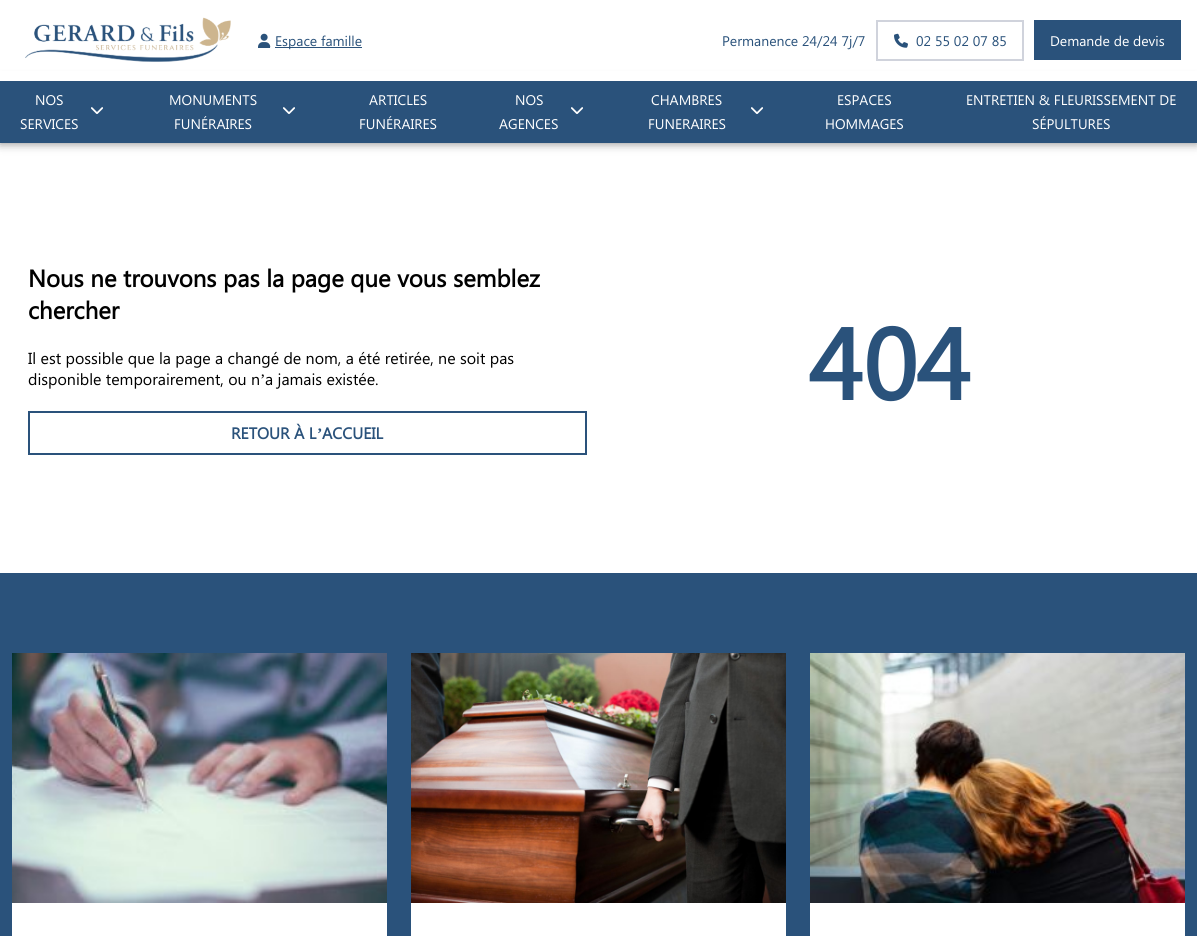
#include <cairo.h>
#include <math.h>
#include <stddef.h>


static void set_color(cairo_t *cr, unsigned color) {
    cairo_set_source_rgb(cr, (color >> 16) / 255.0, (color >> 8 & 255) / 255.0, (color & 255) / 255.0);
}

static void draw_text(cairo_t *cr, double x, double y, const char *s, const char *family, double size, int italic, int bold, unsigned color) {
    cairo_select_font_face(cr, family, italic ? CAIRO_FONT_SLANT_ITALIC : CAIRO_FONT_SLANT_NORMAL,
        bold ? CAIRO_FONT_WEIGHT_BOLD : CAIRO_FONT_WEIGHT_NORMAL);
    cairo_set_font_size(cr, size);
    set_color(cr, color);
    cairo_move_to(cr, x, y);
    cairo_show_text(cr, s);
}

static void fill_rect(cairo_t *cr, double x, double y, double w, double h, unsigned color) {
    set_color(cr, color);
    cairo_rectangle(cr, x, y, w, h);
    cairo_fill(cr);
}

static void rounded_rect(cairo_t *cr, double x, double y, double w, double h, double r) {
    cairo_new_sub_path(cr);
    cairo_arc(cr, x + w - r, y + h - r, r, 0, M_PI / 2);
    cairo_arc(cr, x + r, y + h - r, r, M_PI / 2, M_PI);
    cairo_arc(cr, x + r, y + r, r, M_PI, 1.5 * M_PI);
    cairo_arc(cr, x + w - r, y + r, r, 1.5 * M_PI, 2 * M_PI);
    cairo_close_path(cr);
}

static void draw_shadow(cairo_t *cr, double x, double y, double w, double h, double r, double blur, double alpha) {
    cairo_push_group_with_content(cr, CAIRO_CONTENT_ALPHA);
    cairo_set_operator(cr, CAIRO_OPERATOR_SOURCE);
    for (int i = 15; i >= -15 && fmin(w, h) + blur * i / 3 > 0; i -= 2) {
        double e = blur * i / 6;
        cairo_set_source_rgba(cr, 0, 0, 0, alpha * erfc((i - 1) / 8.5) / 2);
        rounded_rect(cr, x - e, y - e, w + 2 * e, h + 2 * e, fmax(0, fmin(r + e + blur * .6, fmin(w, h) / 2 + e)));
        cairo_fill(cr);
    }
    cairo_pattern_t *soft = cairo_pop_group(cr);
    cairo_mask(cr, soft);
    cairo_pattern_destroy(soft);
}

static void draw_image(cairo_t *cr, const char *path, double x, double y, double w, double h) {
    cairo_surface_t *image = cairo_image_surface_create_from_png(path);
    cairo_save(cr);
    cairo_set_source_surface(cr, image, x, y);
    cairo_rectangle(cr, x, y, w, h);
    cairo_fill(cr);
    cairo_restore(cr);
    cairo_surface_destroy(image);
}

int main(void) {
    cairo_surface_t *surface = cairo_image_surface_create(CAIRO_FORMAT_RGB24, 1197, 936);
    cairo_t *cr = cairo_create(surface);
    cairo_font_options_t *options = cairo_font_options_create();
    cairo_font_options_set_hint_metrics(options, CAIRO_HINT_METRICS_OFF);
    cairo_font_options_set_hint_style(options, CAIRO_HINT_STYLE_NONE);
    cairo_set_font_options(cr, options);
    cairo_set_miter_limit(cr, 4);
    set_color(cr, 0xFFFFFF);
    cairo_paint(cr);
    set_color(cr, 0x000000);
    draw_shadow(cr, 0, 81, 1197, 62, 0, 5, 0.5);
    fill_rect(cr, 0, 71, 1197, 10, 0xFFFFFF);
    draw_image(cr, "assets/img1.png", 25, 17, 206, 45);
    fill_rect(cr, 258, 47, 12, 1, 0x2A527B);
    draw_image(cr, "assets/img2.png", 258, 33, 13, 15);
    fill_rect(cr, 275, 47, 87, 1, 0x2A527B);
    draw_text(cr, 275, 46, "Espace famille", "Segoe UI", 14, 0, 0, 0x2A527B);
    draw_text(cr, 722, 46, "Permanence 24/24 7j/7", "Segoe UI", 14, 0, 0, 0x2A527B);
    cairo_rectangle(cr, 877, 21, 146, 39);
    set_color(cr, 0xD0D3DC);
    cairo_stroke(cr);
    draw_image(cr, "assets/img3.png", 894, 33, 14, 15);
    draw_text(cr, 916, 46, "02 55 02 07 85", "Segoe UI", 14, 0, 0, 0x2A527B);
    fill_rect(cr, 1034, 20, 147, 40, 0x2A527B);
    draw_text(cr, 1050, 46, "Demande de devis", "Segoe UI", 14, 0, 0, 0xFFFFFF);
    fill_rect(cr, 0, 81, 1197, 62, 0x2A527B);
    draw_text(cr, 35, 105, "NOS", "Segoe UI", 14, 0, 0, 0xFFFFFF);
    draw_image(cr, "assets/img4.png", 91, 107, 12, 7);
    draw_text(cr, 20, 129, "SERVICES", "Segoe UI", 14, 0, 0, 0xFFFFFF);
    draw_text(cr, 169, 105, "MONUMENTS", "Segoe UI", 14, 0, 0, 0xFFFFFF);
    draw_image(cr, "assets/img4.png", 283, 107, 12, 7);
    draw_text(cr, 174, 129, "FUNÉRAIRES", "Segoe UI", 14, 0, 0, 0xFFFFFF);
    draw_text(cr, 369, 105, "ARTICLES", "Segoe UI", 14, 0, 0, 0xFFFFFF);
    draw_text(cr, 359, 129, "FUNÉRAIRES", "Segoe UI", 14, 0, 0, 0xFFFFFF);
    draw_text(cr, 515, 105, "NOS", "Segoe UI", 14, 0, 0, 0xFFFFFF);
    draw_image(cr, "assets/img4.png", 571, 107, 12, 7);
    draw_text(cr, 499, 129, "AGENCES", "Segoe UI", 14, 0, 0, 0xFFFFFF);
    draw_text(cr, 651, 105, "CHAMBRES", "Segoe UI", 14, 0, 0, 0xFFFFFF);
    draw_image(cr, "assets/img4.png", 751, 107, 12, 7);
    draw_text(cr, 648, 129, "FUNERAIRES", "Segoe UI", 14, 0, 0, 0xFFFFFF);
    draw_text(cr, 837, 105, "ESPACES", "Segoe UI", 14, 0, 0, 0xFFFFFF);
    draw_text(cr, 825, 129, "HOMMAGES", "Segoe UI", 14, 0, 0, 0xFFFFFF);
    draw_text(cr, 966, 105, "ENTRETIEN & FLEURISSEMENT DE", "Segoe UI", 14, 0, 0, 0xFFFFFF);
    draw_text(cr, 1032, 129, "SÉPULTURES", "Segoe UI", 14, 0, 0, 0xFFFFFF);
    draw_text(cr, 28, 287, "Nous ne trouvons pas la page que vous semblez", "Segoe UI", 24, 0, 1, 0x000000);
    draw_text(cr, 28, 319, "chercher", "Segoe UI", 24, 0, 1, 0x000000);
    draw_text(cr, 28, 364, "Il est possible que la page a changé de nom, a été retirée, ne soit pas", "Segoe UI", 16, 0, 0, 0x000000);
    draw_text(cr, 28, 385, "disponible temporairement, ou n", "Segoe UI", 16, 0, 0, 0x000000);
    draw_text(cr, 260, 385, "’", "Liberation Serif", 16, 0, 0, 0x000000);
    draw_text(cr, 265, 385, "a jamais existée.", "Segoe UI", 16, 0, 0, 0x000000);
    cairo_rectangle(cr, 29, 412, 557, 42);
    set_color(cr, 0x2A527B);
    cairo_stroke(cr);
    draw_text(cr, 231, 439, "RETOUR À L", "Segoe UI", 16, 0, 1, 0x2A527B);
    draw_text(cr, 317, 439, "’", "Liberation Serif", 16, 0, 1, 0x2A527B);
    draw_text(cr, 322, 439, "ACCUEIL", "Segoe UI", 16, 0, 1, 0x2A527B);
    draw_text(cr, 809, 400, "404", "Segoe UI", 100, 0, 1, 0x2A527B);
    fill_rect(cr, 0, 573, 1197, 363, 0x2A527B);
    fill_rect(cr, 12, 903, 375, 33, 0xFFFFFF);
    draw_image(cr, "assets/img5.png", 12, 653, 375, 250);
    fill_rect(cr, 411, 903, 375, 33, 0xFFFFFF);
    draw_image(cr, "assets/img6.png", 411, 653, 375, 250);
    fill_rect(cr, 810, 903, 375, 33, 0xFFFFFF);
    draw_image(cr, "assets/img7.png", 810, 653, 375, 250);
    cairo_surface_write_to_png(surface, "output.png");
    cairo_font_options_destroy(options);
    cairo_destroy(cr);
    cairo_surface_destroy(surface);
    return 0;
}
